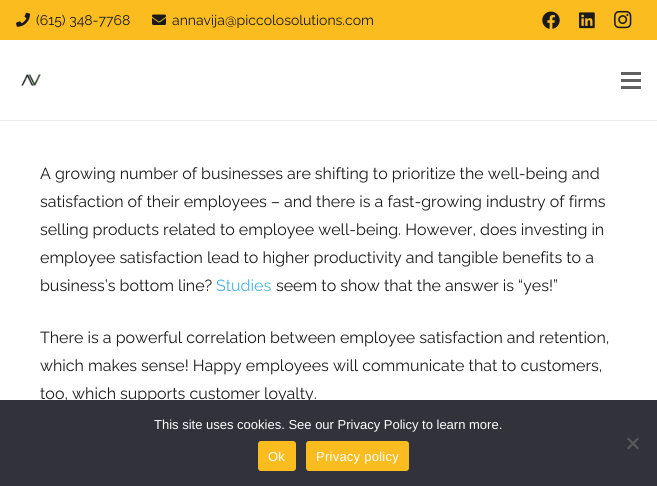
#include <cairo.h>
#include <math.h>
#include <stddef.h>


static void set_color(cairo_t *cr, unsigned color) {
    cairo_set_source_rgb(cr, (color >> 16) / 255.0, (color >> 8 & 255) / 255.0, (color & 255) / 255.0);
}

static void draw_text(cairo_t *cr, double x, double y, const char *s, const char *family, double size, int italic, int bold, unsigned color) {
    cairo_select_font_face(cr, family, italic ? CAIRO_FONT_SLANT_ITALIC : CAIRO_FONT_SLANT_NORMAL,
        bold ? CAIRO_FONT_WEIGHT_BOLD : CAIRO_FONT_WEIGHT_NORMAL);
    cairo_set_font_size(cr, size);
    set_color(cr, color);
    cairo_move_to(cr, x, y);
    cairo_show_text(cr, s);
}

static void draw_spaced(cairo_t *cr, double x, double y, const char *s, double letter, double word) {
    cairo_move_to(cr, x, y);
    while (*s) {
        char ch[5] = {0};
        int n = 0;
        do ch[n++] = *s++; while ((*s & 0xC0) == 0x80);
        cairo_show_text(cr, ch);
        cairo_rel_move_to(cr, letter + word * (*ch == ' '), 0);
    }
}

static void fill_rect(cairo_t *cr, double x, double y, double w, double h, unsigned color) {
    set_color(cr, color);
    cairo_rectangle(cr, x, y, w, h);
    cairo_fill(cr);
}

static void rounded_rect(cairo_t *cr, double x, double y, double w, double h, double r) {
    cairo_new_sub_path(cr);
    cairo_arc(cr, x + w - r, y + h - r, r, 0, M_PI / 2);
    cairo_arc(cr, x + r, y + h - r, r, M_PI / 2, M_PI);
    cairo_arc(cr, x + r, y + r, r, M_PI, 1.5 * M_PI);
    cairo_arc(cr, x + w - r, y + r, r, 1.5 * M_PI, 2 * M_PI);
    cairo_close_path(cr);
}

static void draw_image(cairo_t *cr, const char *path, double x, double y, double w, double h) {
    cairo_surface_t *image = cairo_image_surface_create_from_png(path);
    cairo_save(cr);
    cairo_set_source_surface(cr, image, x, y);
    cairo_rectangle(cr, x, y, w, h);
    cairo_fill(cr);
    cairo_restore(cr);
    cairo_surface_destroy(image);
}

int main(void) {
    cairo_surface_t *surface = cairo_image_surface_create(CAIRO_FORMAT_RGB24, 657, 486);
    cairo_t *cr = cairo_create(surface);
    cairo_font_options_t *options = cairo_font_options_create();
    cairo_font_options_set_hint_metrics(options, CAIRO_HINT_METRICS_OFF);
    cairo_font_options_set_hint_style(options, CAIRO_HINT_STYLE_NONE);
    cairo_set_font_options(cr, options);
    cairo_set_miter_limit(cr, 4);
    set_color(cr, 0xFFFFFF);
    cairo_paint(cr);
    fill_rect(cr, 0, 0, 657, 40, 0xFBBC20);
    draw_image(cr, "assets/img1.png", 16, 12, 14, 15);
    draw_text(cr, 36, 25, "(615) 348-7768", "Raleway", 14, 0, 0, 0x1A1A1A);
    draw_image(cr, "assets/img2.png", 152, 14, 14, 11);
    draw_text(cr, 172, 25, "annavija@piccolosolutions.com", "Raleway", 14, 0, 0, 0x1A1A1A);
    draw_image(cr, "assets/img3.png", 542, 11, 18, 18);
    draw_image(cr, "assets/img4.png", 579, 12, 16, 17);
    draw_image(cr, "assets/img5.png", 614, 10, 18, 19);
    fill_rect(cr, 0, 120, 657, 1, 0xEBEBEB);
    draw_image(cr, "assets/img6.png", 21, 73, 20, 14);
    fill_rect(cr, 621, 79, 20, 3, 0x616161);
    fill_rect(cr, 621, 72, 20, 3, 0x616161);
    fill_rect(cr, 621, 86, 20, 3, 0x616161);
    draw_text(cr, 40, 179, "A growing number of businesses are shifting to prioritize the well-being and", "Raleway", 16, 0, 0, 0x1A1A1A);
    draw_text(cr, 40, 207, "satisfaction of their employees – and there is a fast-growing industry of firms", "Raleway", 16, 0, 0, 0x1A1A1A);
    draw_text(cr, 40, 235, "selling products related to employee well-being. However, does investing in", "Raleway", 16, 0, 0, 0x1A1A1A);
    draw_text(cr, 40, 263, "employee satisfaction lead to higher productivity and tangible benefits to a", "Raleway", 16, 0, 0, 0x1A1A1A);
    draw_text(cr, 40, 291, "business’s bottom line?", "Raleway", 16, 0, 0, 0x1A1A1A);
    draw_text(cr, 216, 291, "Studies", "Raleway", 16, 0, 0, 0x48B3E3);
    draw_text(cr, 276, 291, "seem to show that the answer is “yes!”", "Raleway", 16, 0, 0, 0x1A1A1A);
    draw_text(cr, 40, 343, "There is a powerful correlation between employee satisfaction and retention,", "Raleway", 16, 0, 0, 0x1A1A1A);
    draw_text(cr, 40, 371, "which makes sense! Happy employees will communicate that to customers,", "Raleway", 16, 0, 0, 0x1A1A1A);
    draw_text(cr, 40, 399, "too, which supports customer loyalty.", "Raleway", 16, 0, 0, 0x1A1A1A);
    fill_rect(cr, 0, 400, 657, 86, 0x32323A);
    draw_text(cr, 154, 429, "This site uses cookies. See our Privacy Policy to learn more.", "Liberation Sans", 13, 0, 0, 0xFFFFFF);
    set_color(cr, 0x59595D);
    cairo_new_path(cr);
    cairo_move_to(cr, 637.5, 437.5);
    cairo_line_to(cr, 639, 439);
    cairo_line_to(cr, 628.5, 449.5);
    cairo_line_to(cr, 627, 448);
    cairo_close_path(cr);
    cairo_fill(cr);
    cairo_new_path(cr);
    cairo_move_to(cr, 627, 439);
    cairo_line_to(cr, 628.5, 437.5);
    cairo_line_to(cr, 639, 448);
    cairo_line_to(cr, 637.5, 449.5);
    cairo_close_path(cr);
    cairo_fill(cr);
    set_color(cr, 0xFBBC20);
    rounded_rect(cr, 258, 441, 38, 30, 3);
    cairo_fill(cr);
    set_color(cr, 0xFFFFFF);
    draw_spaced(cr, 268, 461, "Ok", 0.25, 0);
    set_color(cr, 0xFBBC20);
    rounded_rect(cr, 306, 441, 103, 30, 3);
    cairo_fill(cr);
    set_color(cr, 0xFFFFFF);
    draw_spaced(cr, 316, 461, "Privacy policy", 0.25, 0);
    cairo_surface_write_to_png(surface, "output.png");
    cairo_font_options_destroy(options);
    cairo_destroy(cr);
    cairo_surface_destroy(surface);
    return 0;
}
